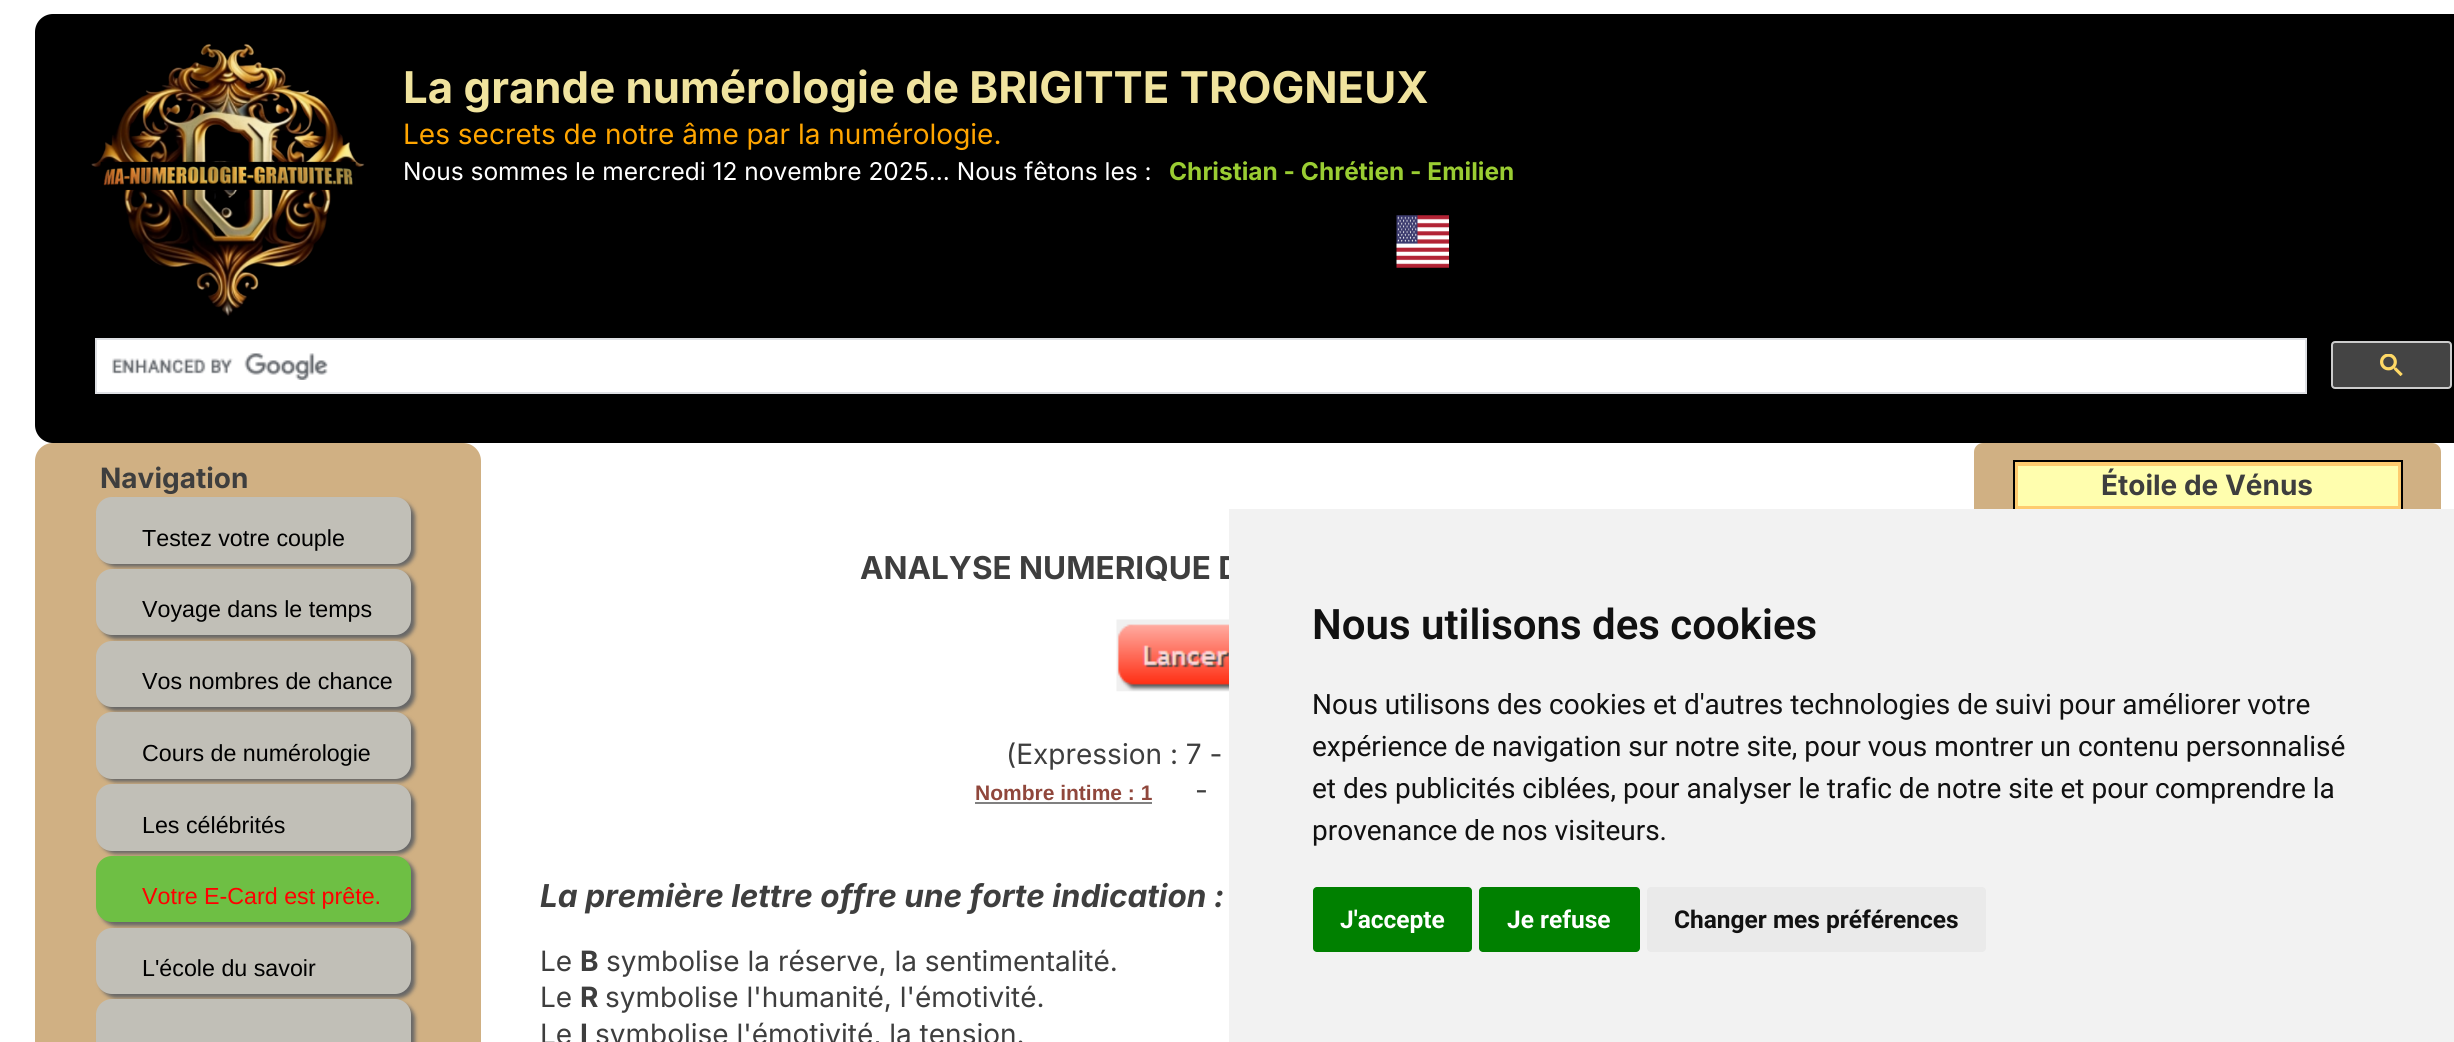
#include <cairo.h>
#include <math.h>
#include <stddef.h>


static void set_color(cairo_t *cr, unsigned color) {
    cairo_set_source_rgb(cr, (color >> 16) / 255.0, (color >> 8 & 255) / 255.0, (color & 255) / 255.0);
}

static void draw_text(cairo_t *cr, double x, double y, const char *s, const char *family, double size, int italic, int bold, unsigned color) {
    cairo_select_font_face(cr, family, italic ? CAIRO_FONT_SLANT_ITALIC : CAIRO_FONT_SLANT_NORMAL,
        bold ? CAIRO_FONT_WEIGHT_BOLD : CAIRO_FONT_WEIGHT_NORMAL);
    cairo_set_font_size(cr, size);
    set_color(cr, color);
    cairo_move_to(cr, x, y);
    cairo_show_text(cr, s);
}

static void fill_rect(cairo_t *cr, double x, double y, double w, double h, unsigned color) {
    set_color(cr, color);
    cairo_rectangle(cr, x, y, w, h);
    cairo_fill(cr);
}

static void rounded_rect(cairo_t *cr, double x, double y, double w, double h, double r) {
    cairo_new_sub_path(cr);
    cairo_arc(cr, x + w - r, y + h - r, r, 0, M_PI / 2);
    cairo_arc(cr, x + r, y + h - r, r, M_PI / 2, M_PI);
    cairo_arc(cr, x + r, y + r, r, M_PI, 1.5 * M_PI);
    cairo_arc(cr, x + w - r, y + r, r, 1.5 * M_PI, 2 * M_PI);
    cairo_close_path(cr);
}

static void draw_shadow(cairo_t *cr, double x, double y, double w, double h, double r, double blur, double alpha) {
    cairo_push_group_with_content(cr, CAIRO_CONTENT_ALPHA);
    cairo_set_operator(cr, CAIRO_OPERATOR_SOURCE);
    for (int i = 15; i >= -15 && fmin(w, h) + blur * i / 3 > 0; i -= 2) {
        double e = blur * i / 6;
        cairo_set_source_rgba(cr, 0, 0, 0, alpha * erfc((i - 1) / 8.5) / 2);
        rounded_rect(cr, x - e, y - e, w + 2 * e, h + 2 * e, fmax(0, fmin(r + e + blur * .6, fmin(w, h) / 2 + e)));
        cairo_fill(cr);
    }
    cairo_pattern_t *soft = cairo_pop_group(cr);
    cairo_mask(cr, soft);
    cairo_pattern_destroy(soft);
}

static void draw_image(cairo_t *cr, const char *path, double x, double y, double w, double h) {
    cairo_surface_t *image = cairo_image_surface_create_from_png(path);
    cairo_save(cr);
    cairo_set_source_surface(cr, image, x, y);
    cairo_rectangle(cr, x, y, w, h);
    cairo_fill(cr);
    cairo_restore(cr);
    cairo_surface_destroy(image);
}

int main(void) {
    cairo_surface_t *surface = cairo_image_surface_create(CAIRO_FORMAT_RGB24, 2454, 1042);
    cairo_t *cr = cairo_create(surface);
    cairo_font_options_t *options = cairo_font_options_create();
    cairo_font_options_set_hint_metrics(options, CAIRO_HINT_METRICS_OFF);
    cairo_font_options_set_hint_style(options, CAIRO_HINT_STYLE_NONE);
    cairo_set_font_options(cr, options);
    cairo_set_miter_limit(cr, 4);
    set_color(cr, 0xFFFFFF);
    cairo_paint(cr);
    set_color(cr, 0x000000);
    rounded_rect(cr, 35, 14, 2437, 429, 18);
    cairo_fill(cr);
    draw_image(cr, "assets/img1.png", 91, 43, 274, 273);
    draw_text(cr, 403, 103, "La grande numérologie de BRIGITTE TROGNEUX", "Inter", 43.75, 0, 1, 0xF0E39E);
    draw_text(cr, 403, 144, "Les secrets de notre âme par la numérologie.", "Inter", 28, 0, 0, 0xFFA500);
    draw_text(cr, 403, 180, "Nous sommes le mercredi 12 novembre 2025... Nous fêtons les :", "Inter", 24.5, 0, 0, 0xFFFFFF);
    draw_text(cr, 1169, 180, "Christian - Chrétien - Emilien", "Inter", 24.5, 0, 1, 0x9ACD32);
    draw_image(cr, "assets/img2.png", 1396, 215, 53, 53);
    set_color(cr, 0xFFFFFF);
    cairo_rectangle(cr, 96, 339, 2210, 54);
    cairo_fill_preserve(cr);
    set_color(cr, 0xDFE1E5);
    cairo_stroke(cr);
    draw_image(cr, "assets/img3.png", 112, 353, 216, 27);
    set_color(cr, 0x444444);
    rounded_rect(cr, 2332, 342, 119, 46, 3);
    cairo_fill_preserve(cr);
    set_color(cr, 0xCCCCCC);
    cairo_stroke(cr);
    draw_image(cr, "assets/img4.png", 2380, 354, 23, 22);
    set_color(cr, 0xD0B083);
    rounded_rect(cr, 35, 443, 446, 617, 18);
    cairo_fill(cr);
    set_color(cr, 0x666666);
    draw_shadow(cr, 100, 501, 315, 66, 16, 2, 1);
    draw_text(cr, 100, 488, "Navigation", "Inter", 28, 0, 1, 0x3E3E3E);
    set_color(cr, 0xC1BFB7);
    rounded_rect(cr, 96, 497, 315, 67, 16);
    cairo_fill(cr);
    draw_text(cr, 142, 546, "Testez votre couple", "Liberation Sans", 23.25, 0, 0, 0x000000);
    set_color(cr, 0x666666);
    draw_shadow(cr, 100, 572, 315, 67, 16, 2, 1);
    set_color(cr, 0xC1BFB7);
    rounded_rect(cr, 96, 569, 315, 66, 16);
    cairo_fill(cr);
    draw_text(cr, 142, 617, "Voyage dans le temps", "Liberation Sans", 23.25, 0, 0, 0x000000);
    set_color(cr, 0x666666);
    draw_shadow(cr, 100, 644, 315, 67, 16, 2, 1);
    set_color(cr, 0xC1BFB7);
    rounded_rect(cr, 96, 641, 315, 66, 16);
    cairo_fill(cr);
    draw_text(cr, 142, 689, "Vos nombres de chance", "Liberation Sans", 23.25, 0, 0, 0x000000);
    set_color(cr, 0x666666);
    draw_shadow(cr, 100, 716, 315, 66, 16, 2, 1);
    set_color(cr, 0xC1BFB7);
    rounded_rect(cr, 96, 712, 315, 67, 16);
    cairo_fill(cr);
    draw_text(cr, 142, 761, "Cours de numérologie", "Liberation Sans", 23.25, 0, 0, 0x000000);
    set_color(cr, 0x666666);
    draw_shadow(cr, 100, 788, 315, 66, 16, 2, 1);
    set_color(cr, 0xC1BFB7);
    rounded_rect(cr, 96, 784, 315, 67, 16);
    cairo_fill(cr);
    draw_text(cr, 142, 833, "Les célébrités", "Liberation Sans", 23.25, 0, 0, 0x000000);
    set_color(cr, 0x666666);
    draw_shadow(cr, 100, 859, 315, 67, 16, 2, 1);
    set_color(cr, 0x6EBF44);
    rounded_rect(cr, 96, 856, 315, 66, 16);
    cairo_fill(cr);
    draw_text(cr, 142, 904, "Votre E-Card est prête.", "Liberation Sans", 23.25, 0, 0, 0xFF0000);
    set_color(cr, 0x666666);
    draw_shadow(cr, 100, 931, 315, 67, 16, 2, 1);
    set_color(cr, 0xC1BFB7);
    rounded_rect(cr, 96, 928, 315, 66, 16);
    cairo_fill(cr);
    draw_text(cr, 142, 976, "L'école du savoir", "Liberation Sans", 23.25, 0, 0, 0x000000);
    set_color(cr, 0x666666);
    draw_shadow(cr, 100, 1003, 315, 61, 16, 2, 1);
    set_color(cr, 0xC1BFB7);
    rounded_rect(cr, 96, 999, 315, 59, 16);
    cairo_fill(cr);
    set_color(cr, 0xD0B083);
    rounded_rect(cr, 1974, 443, 467, 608, 9);
    cairo_fill(cr);
    fill_rect(cr, 2015, 462, 386, 47, 0xFECB6F);
    cairo_rectangle(cr, 2014, 461, 388, 308);
    set_color(cr, 0x000000);
    cairo_stroke(cr);
    fill_rect(cr, 2018, 466, 380, 40, 0xFFFEAE);
    draw_text(cr, 2101, 495, "Étoile de Vénus", "Inter", 28, 0, 1, 0x3E3E3E);
    draw_text(cr, 860, 579, "ANALYSE NUMERIQUE D", "Inter", 31.5, 0, 1, 0x3E3E3E);
    draw_image(cr, "assets/img5.png", 1116, 619, 113, 73);
    draw_text(cr, 1006, 764, "(Expression : 7 -", "Inter", 28, 0, 0, 0x3E3E3E);
    draw_text(cr, 975, 800, "Nombre intime : 1", "Liberation Sans", 21, 0, 1, 0x90473C);
    fill_rect(cr, 975, 802, 177, 2, 0x808080);
    draw_text(cr, 1195, 800, "-", "Inter", 28, 0, 0, 0x3E3E3E);
    draw_text(cr, 540, 907, "La première lettre offre une forte indication :", "Inter", 31.5, 1, 1, 0x3E3E3E);
    draw_text(cr, 540, 971, "Le", "Inter", 28, 0, 0, 0x3E3E3E);
    draw_text(cr, 580, 971, "B", "Inter", 28, 0, 1, 0x3E3E3E);
    draw_text(cr, 606, 971, "symbolise la réserve, la sentimentalité.", "Inter", 28, 0, 0, 0x3E3E3E);
    draw_text(cr, 540, 1007, "Le", "Inter", 28, 0, 0, 0x3E3E3E);
    draw_text(cr, 580, 1007, "R", "Inter", 28, 0, 1, 0x3E3E3E);
    draw_text(cr, 605, 1007, "symbolise l'humanité, l'émotivité.", "Inter", 28, 0, 0, 0x3E3E3E);
    draw_text(cr, 540, 1044, "Le", "Inter", 28, 0, 0, 0x3E3E3E);
    draw_text(cr, 580, 1044, "I", "Inter", 28, 0, 1, 0x3E3E3E);
    draw_text(cr, 595, 1044, "symbolise l'émotivité, la tension.", "Inter", 28, 0, 0, 0x3E3E3E);
    fill_rect(cr, 1229, 509, 1225, 533, 0xF2F2F2);
    draw_text(cr, 1312, 639, "Nous utilisons des cookies", "Roboto SemiBold", 42, 0, 0, 0x111111);
    draw_text(cr, 1312, 714, "Nous utilisons des cookies et d'autres technologies de suivi pour améliorer votre", "Roboto", 28, 0, 0, 0x111111);
    draw_text(cr, 1312, 756, "expérience de navigation sur notre site, pour vous montrer un contenu personnalisé", "Roboto", 28, 0, 0, 0x111111);
    draw_text(cr, 1312, 798, "et des publicités ciblées, pour analyser le trafic de notre site et pour comprendre la", "Roboto", 28, 0, 0, 0x111111);
    draw_text(cr, 1312, 840, "provenance de nos visiteurs.", "Roboto", 28, 0, 0, 0x111111);
    set_color(cr, 0x008000);
    rounded_rect(cr, 1313, 887, 159, 65, 4);
    cairo_fill(cr);
    draw_text(cr, 1340, 928, "J'accepte", "Roboto", 24.5, 0, 1, 0xFFFFFF);
    set_color(cr, 0x008000);
    rounded_rect(cr, 1479, 887, 161, 65, 4);
    cairo_fill(cr);
    draw_text(cr, 1507, 928, "Je refuse", "Roboto", 24.5, 0, 1, 0xFFFFFF);
    set_color(cr, 0xEAEAEA);
    rounded_rect(cr, 1647, 887, 339, 65, 4);
    cairo_fill(cr);
    draw_text(cr, 1674, 928, "Changer mes préférences", "Roboto", 24.5, 0, 1, 0x111111);
    cairo_surface_write_to_png(surface, "output.png");
    cairo_font_options_destroy(options);
    cairo_destroy(cr);
    cairo_surface_destroy(surface);
    return 0;
}
